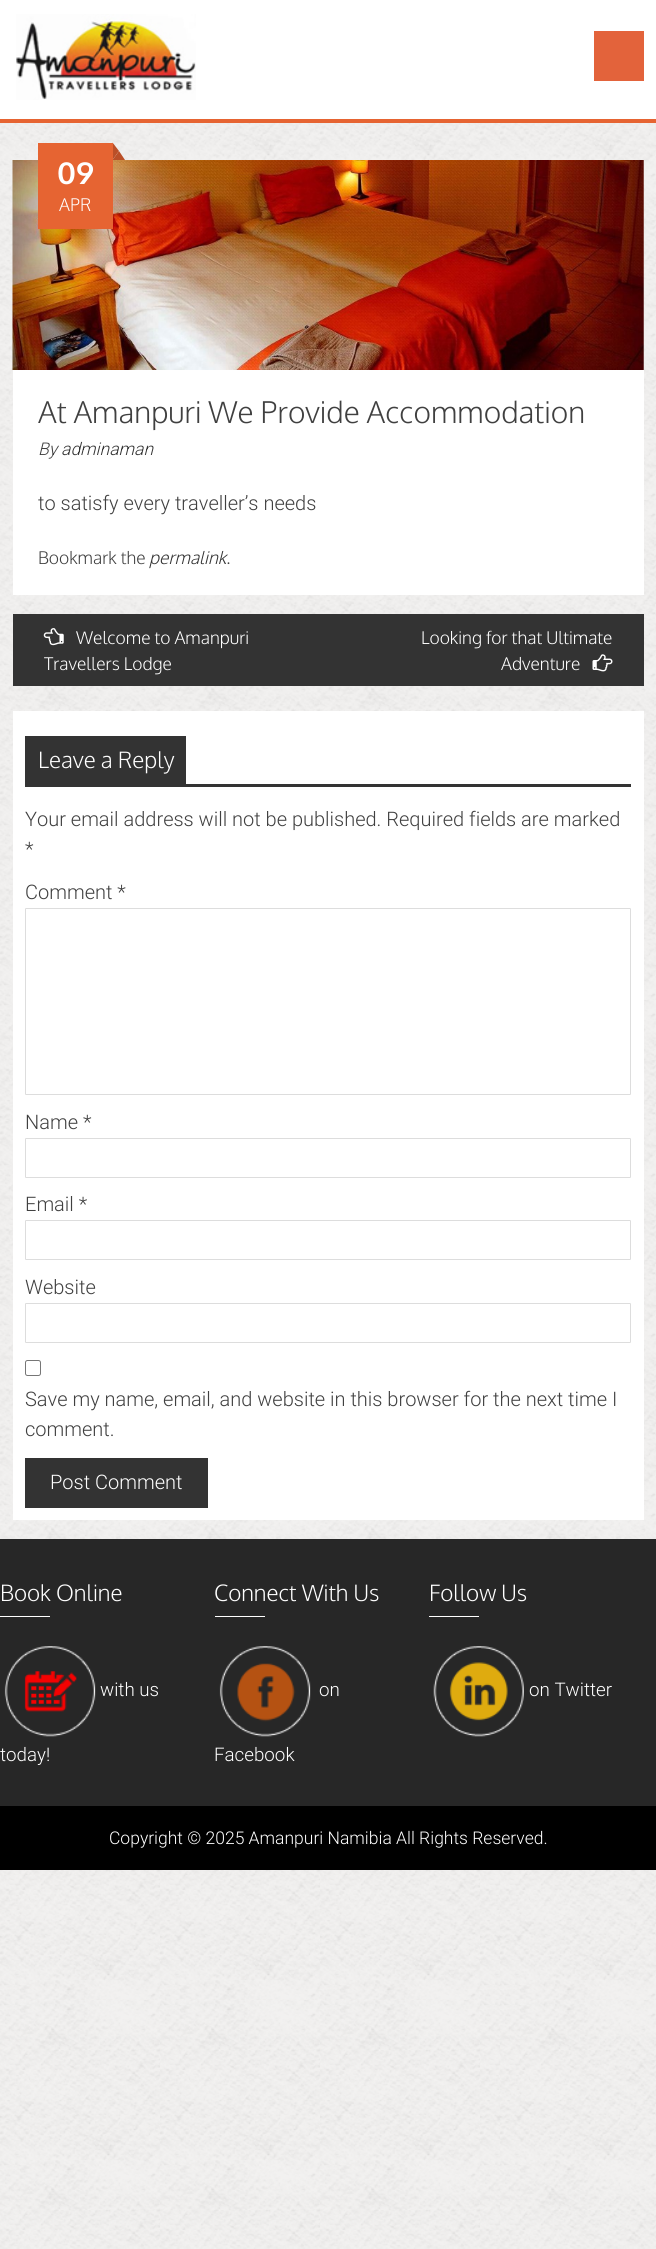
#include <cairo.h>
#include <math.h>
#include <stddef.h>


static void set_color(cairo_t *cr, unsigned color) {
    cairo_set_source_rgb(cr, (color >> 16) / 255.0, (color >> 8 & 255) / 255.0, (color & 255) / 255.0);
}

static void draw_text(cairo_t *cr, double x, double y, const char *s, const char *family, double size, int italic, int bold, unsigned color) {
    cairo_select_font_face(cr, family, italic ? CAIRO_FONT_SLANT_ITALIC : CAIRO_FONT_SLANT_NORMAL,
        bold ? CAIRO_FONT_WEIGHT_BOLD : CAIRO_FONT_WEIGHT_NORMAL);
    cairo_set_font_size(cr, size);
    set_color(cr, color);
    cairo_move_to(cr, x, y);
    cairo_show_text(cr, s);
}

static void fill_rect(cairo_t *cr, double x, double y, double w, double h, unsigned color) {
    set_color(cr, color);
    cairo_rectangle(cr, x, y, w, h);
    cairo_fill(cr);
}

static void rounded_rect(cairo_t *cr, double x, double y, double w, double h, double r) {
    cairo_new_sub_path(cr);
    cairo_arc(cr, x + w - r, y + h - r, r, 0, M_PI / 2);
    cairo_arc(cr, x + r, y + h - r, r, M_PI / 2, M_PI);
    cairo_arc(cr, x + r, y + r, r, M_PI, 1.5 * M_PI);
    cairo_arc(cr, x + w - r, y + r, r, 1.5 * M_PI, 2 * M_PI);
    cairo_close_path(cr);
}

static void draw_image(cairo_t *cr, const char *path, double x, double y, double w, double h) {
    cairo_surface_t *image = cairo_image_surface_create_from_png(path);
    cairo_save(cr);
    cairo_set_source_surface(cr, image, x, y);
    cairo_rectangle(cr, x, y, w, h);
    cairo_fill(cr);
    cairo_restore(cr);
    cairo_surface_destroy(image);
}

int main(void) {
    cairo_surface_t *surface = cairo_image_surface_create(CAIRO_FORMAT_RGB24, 656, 2249);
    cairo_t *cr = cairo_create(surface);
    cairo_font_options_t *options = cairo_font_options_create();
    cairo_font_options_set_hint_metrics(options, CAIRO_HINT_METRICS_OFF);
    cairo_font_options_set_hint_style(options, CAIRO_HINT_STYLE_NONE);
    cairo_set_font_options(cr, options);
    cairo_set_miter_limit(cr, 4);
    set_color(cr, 0xFFFFFF);
    cairo_paint(cr);
    draw_image(cr, "assets/img1.png", 0, 123, 656, 2126);
    fill_rect(cr, 0, 119, 656, 4, 0xE66432);
    draw_image(cr, "assets/img2.png", 16, 14, 180, 86);
    fill_rect(cr, 594, 31, 50, 50, 0xE3633B);
    fill_rect(cr, 13, 160, 631, 435, 0xFFFFFF);
    draw_image(cr, "assets/img3.png", 12, 160, 632, 210);
    set_color(cr, 0xBA4F28);
    cairo_new_path(cr);
    cairo_move_to(cr, 125, 160);
    cairo_line_to(cr, 112.5, 160);
    cairo_line_to(cr, 119, 151);
    cairo_close_path(cr);
    cairo_fill(cr);
    cairo_new_path(cr);
    cairo_move_to(cr, 112.5, 160);
    cairo_line_to(cr, 112.5, 142.5);
    cairo_line_to(cr, 119, 151);
    cairo_close_path(cr);
    cairo_fill(cr);
    fill_rect(cr, 38, 143, 75, 86, 0xE66432);
    draw_text(cr, 57, 184, "09", "Oxygen", 30, 0, 1, 0xFFFFFF);
    draw_text(cr, 59, 211, "APR", "Oxygen Light", 17.5, 0, 0, 0xFFFFFF);
    draw_text(cr, 38, 455, "By", "Roboto Light", 17.5, 1, 0, 0x404040);
    draw_text(cr, 61, 455, "adminaman", "Roboto Light", 17.5, 1, 0, 0x333333);
    draw_text(cr, 38, 423, "At Amanpuri We Provide Accommodation", "Oxygen Light", 30, 0, 0, 0x404040);
    draw_text(cr, 38, 510, "to satisfy every traveller’s needs", "Roboto Light", 20, 0, 0, 0x404040);
    draw_text(cr, 38, 564, "Bookmark the", "Oxygen Light", 17.5, 0, 0, 0x404040);
    draw_text(cr, 149, 564, "permalink", "Oxygen Light", 17.5, 1, 0, 0x333333);
    draw_text(cr, 226, 564, ".", "Oxygen Light", 17.5, 0, 0, 0x404040);
    fill_rect(cr, 13, 614, 631, 72, 0x333333);
    draw_image(cr, "assets/img4.png", 43, 628, 21, 18);
    draw_text(cr, 76, 644, "Welcome to Amanpuri", "Oxygen Light", 17.5, 0, 0, 0xFFFFFF);
    draw_text(cr, 44, 670, "Travellers Lodge", "Oxygen Light", 17.5, 0, 0, 0xFFFFFF);
    draw_text(cr, 421, 644, "Looking for that Ultimate", "Oxygen Light", 17.5, 0, 0, 0xFFFFFF);
    draw_text(cr, 501, 670, "Adventure", "Oxygen Light", 17.5, 0, 0, 0xFFFFFF);
    draw_image(cr, "assets/img5.png", 592, 654, 21, 18);
    fill_rect(cr, 13, 711, 631, 809, 0xFFFFFF);
    fill_rect(cr, 25, 736, 161, 48, 0x333333);
    draw_text(cr, 38, 768, "Leave a Reply", "Oxygen Light", 22.5, 0, 0, 0xFFFFFF);
    fill_rect(cr, 25, 784, 606, 3, 0x333333);
    draw_text(cr, 25, 826, "Your email address will not be published. Required fields are marked", "Roboto Light", 20, 0, 0, 0x404040);
    draw_text(cr, 25, 856, "*", "Roboto Light", 20, 0, 0, 0x404040);
    draw_text(cr, 25, 899, "Comment *", "Roboto Light", 20, 0, 0, 0x404040);
    rounded_rect(cr, 25.5, 908.5, 605, 186, 0.5);
    set_color(cr, 0xDDDDDD);
    cairo_set_line_width(cr, 1);
    cairo_stroke(cr);
    draw_text(cr, 25, 1129, "Name *", "Roboto Light", 20, 0, 0, 0x404040);
    rounded_rect(cr, 25.5, 1138.5, 605, 39, 0.5);
    set_color(cr, 0xDDDDDD);
    cairo_stroke(cr);
    draw_text(cr, 25, 1211, "Email *", "Roboto Light", 20, 0, 0, 0x404040);
    rounded_rect(cr, 25.5, 1220.5, 605, 39, 0.5);
    set_color(cr, 0xDDDDDD);
    cairo_stroke(cr);
    draw_text(cr, 25, 1294, "Website", "Roboto Light", 20, 0, 0, 0x404040);
    rounded_rect(cr, 25.5, 1303.5, 605, 39, 0.5);
    set_color(cr, 0xDDDDDD);
    cairo_stroke(cr);
    rounded_rect(cr, 25.5, 1360.5, 15, 15, 2);
    set_color(cr, 0x767676);
    cairo_stroke(cr);
    draw_text(cr, 25, 1406, "Save my name, email, and website in this browser for the next time I", "Roboto Light", 20, 0, 0, 0x404040);
    draw_text(cr, 25, 1436, "comment.", "Roboto Light", 20, 0, 0, 0x404040);
    fill_rect(cr, 25, 1458, 183, 50, 0x333333);
    draw_text(cr, 50, 1489, "Post Comment", "Roboto Light", 20, 0, 0, 0xFFFFFF);
    fill_rect(cr, 0, 1806, 656, 64, 0x000000);
    fill_rect(cr, 0, 1539, 656, 267, 0x272727);
    draw_text(cr, 0, 1601, "Book Online", "Oxygen Light", 22.5, 0, 0, 0xFFFFFF);
    fill_rect(cr, 0, 1616, 50, 1, 0xFFFFFF);
    draw_image(cr, "assets/img6.png", 4, 1646, 92, 91);
    draw_text(cr, 100, 1696, "with us", "Roboto Light", 18.75, 0, 0, 0xFFFFFF);
    draw_text(cr, 0, 1761, "today!", "Roboto Light", 18.75, 0, 0, 0xFFFFFF);
    draw_text(cr, 214, 1601, "Connect With Us", "Oxygen Light", 22.5, 0, 0, 0xFFFFFF);
    fill_rect(cr, 215, 1616, 50, 1, 0xFFFFFF);
    draw_image(cr, "assets/img7.png", 219, 1646, 92, 91);
    draw_text(cr, 319, 1696, "on", "Roboto Light", 18.75, 0, 0, 0xFFFFFF);
    draw_text(cr, 214, 1761, "Facebook", "Roboto Light", 18.75, 0, 0, 0xFFFFFF);
    draw_text(cr, 429, 1601, "Follow Us", "Oxygen Light", 22.5, 0, 0, 0xFFFFFF);
    fill_rect(cr, 429, 1616, 50, 1, 0xFFFFFF);
    draw_image(cr, "assets/img8.png", 433, 1646, 91, 91);
    draw_text(cr, 529, 1696, "on Twitter", "Roboto Light", 18.75, 0, 0, 0xFFFFFF);
    draw_text(cr, 109, 1844, "Copyright © 2025 Amanpuri Namibia All Rights Reserved.", "Roboto Light", 17.5, 0, 0, 0xFFFFFF);
    cairo_surface_write_to_png(surface, "output.png");
    cairo_font_options_destroy(options);
    cairo_destroy(cr);
    cairo_surface_destroy(surface);
    return 0;
}
